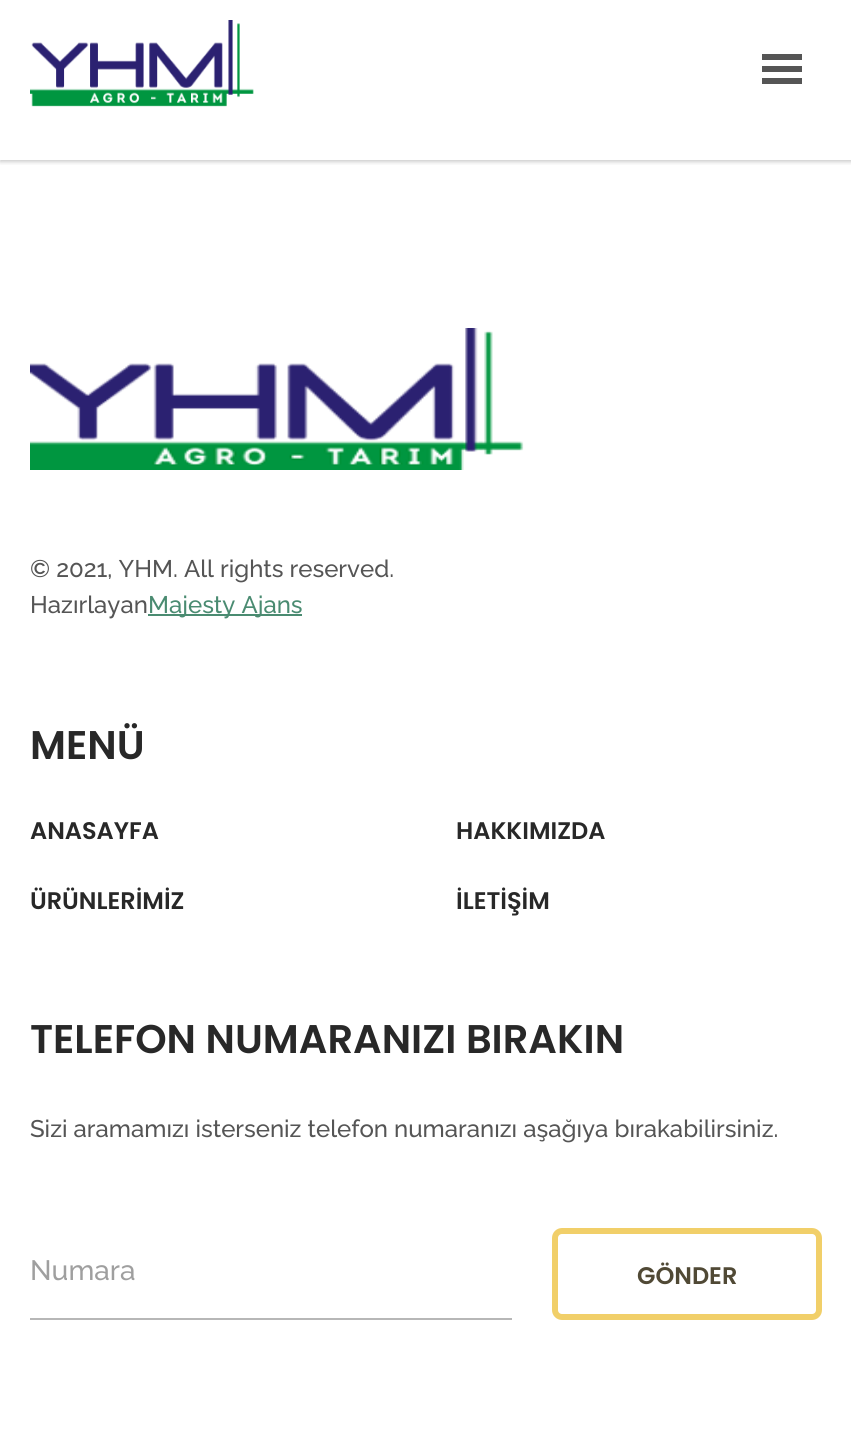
#include <cairo.h>
#include <math.h>
#include <stddef.h>


static void set_color(cairo_t *cr, unsigned color) {
    cairo_set_source_rgb(cr, (color >> 16) / 255.0, (color >> 8 & 255) / 255.0, (color & 255) / 255.0);
}

static void draw_text(cairo_t *cr, double x, double y, const char *s, const char *family, double size, int italic, int bold, unsigned color) {
    cairo_select_font_face(cr, family, italic ? CAIRO_FONT_SLANT_ITALIC : CAIRO_FONT_SLANT_NORMAL,
        bold ? CAIRO_FONT_WEIGHT_BOLD : CAIRO_FONT_WEIGHT_NORMAL);
    cairo_set_font_size(cr, size);
    set_color(cr, color);
    cairo_move_to(cr, x, y);
    cairo_show_text(cr, s);
}

static void fill_rect(cairo_t *cr, double x, double y, double w, double h, unsigned color) {
    set_color(cr, color);
    cairo_rectangle(cr, x, y, w, h);
    cairo_fill(cr);
}

static void rounded_rect(cairo_t *cr, double x, double y, double w, double h, double r) {
    cairo_new_sub_path(cr);
    cairo_arc(cr, x + w - r, y + h - r, r, 0, M_PI / 2);
    cairo_arc(cr, x + r, y + h - r, r, M_PI / 2, M_PI);
    cairo_arc(cr, x + r, y + r, r, M_PI, 1.5 * M_PI);
    cairo_arc(cr, x + w - r, y + r, r, 1.5 * M_PI, 2 * M_PI);
    cairo_close_path(cr);
}

static void draw_shadow(cairo_t *cr, double x, double y, double w, double h, double r, double blur, double alpha) {
    cairo_push_group_with_content(cr, CAIRO_CONTENT_ALPHA);
    cairo_set_operator(cr, CAIRO_OPERATOR_SOURCE);
    for (int i = 15; i >= -15 && fmin(w, h) + blur * i / 3 > 0; i -= 2) {
        double e = blur * i / 6;
        cairo_set_source_rgba(cr, 0, 0, 0, alpha * erfc((i - 1) / 8.5) / 2);
        rounded_rect(cr, x - e, y - e, w + 2 * e, h + 2 * e, fmax(0, fmin(r + e + blur * .6, fmin(w, h) / 2 + e)));
        cairo_fill(cr);
    }
    cairo_pattern_t *soft = cairo_pop_group(cr);
    cairo_mask(cr, soft);
    cairo_pattern_destroy(soft);
}

static void draw_image(cairo_t *cr, const char *path, double x, double y, double w, double h) {
    cairo_surface_t *image = cairo_image_surface_create_from_png(path);
    cairo_save(cr);
    cairo_set_source_surface(cr, image, x, y);
    cairo_rectangle(cr, x, y, w, h);
    cairo_fill(cr);
    cairo_restore(cr);
    cairo_surface_destroy(image);
}

int main(void) {
    cairo_surface_t *surface = cairo_image_surface_create(CAIRO_FORMAT_RGB24, 851, 1439);
    cairo_t *cr = cairo_create(surface);
    cairo_font_options_t *options = cairo_font_options_create();
    cairo_font_options_set_hint_metrics(options, CAIRO_HINT_METRICS_OFF);
    cairo_font_options_set_hint_style(options, CAIRO_HINT_STYLE_NONE);
    cairo_set_font_options(cr, options);
    cairo_set_miter_limit(cr, 4);
    set_color(cr, 0xFFFFFF);
    cairo_paint(cr);
    cairo_save(cr);
    cairo_rectangle(cr, 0, 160, 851, 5);
    cairo_clip(cr);
    set_color(cr, 0x000000);
    draw_shadow(cr, 0, 2, 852, 160, 0, 2, 0.2);
    cairo_restore(cr);
    draw_image(cr, "assets/img1.png", 30, 20, 224, 87);
    fill_rect(cr, 762, 66, 40, 6, 0x555555);
    fill_rect(cr, 762, 54, 40, 6, 0x555555);
    fill_rect(cr, 762, 78, 40, 6, 0x555555);
    draw_image(cr, "assets/img2.png", 30, 328, 494, 142);
    draw_text(cr, 30, 577, "© 2021, YHM. All rights reserved.", "Raleway Medium", 24, 0, 0, 0x555555);
    draw_text(cr, 30, 613, "Hazırlayan", "Raleway Medium", 24, 0, 0, 0x555555);
    fill_rect(cr, 148, 614, 154, 2, 0x4A8B71);
    draw_text(cr, 148, 613, "Majesty Ajans", "Raleway Medium", 24, 0, 0, 0x4A8B71);
    draw_text(cr, 30, 759, "MENÜ", "Poppins SemiBold", 40, 0, 0, 0x282828);
    draw_text(cr, 30, 839, "ANASAYFA", "Poppins SemiBold", 24, 0, 0, 0x282828);
    draw_text(cr, 30, 909, "ÜRÜNLERİMİZ", "Poppins SemiBold", 24, 0, 0, 0x282828);
    draw_text(cr, 456, 839, "HAKKIMIZDA", "Poppins SemiBold", 24, 0, 0, 0x282828);
    draw_text(cr, 456, 909, "İLETİŞİM", "Poppins SemiBold", 24, 0, 0, 0x282828);
    draw_text(cr, 30, 1053, "TELEFON NUMARANIZI BIRAKIN", "Poppins SemiBold", 40, 0, 0, 0x282828);
    draw_text(cr, 30, 1137, "Sizi aramamızı isterseniz telefon numaranızı aşağıya bırakabilirsiniz.", "Raleway Medium", 24, 0, 0, 0x555555);
    fill_rect(cr, 30, 1318, 482, 2, 0xB7B7B7);
    draw_text(cr, 30, 1280, "Numara", "Raleway Medium", 28, 0, 0, 0x9F9F9F);
    rounded_rect(cr, 555, 1231, 264, 86, 7);
    set_color(cr, 0xF1CF69);
    cairo_set_line_width(cr, 6);
    cairo_stroke(cr);
    draw_text(cr, 637, 1284, "GÖNDER", "Poppins SemiBold", 24, 0, 0, 0x504935);
    cairo_surface_write_to_png(surface, "output.png");
    cairo_font_options_destroy(options);
    cairo_destroy(cr);
    cairo_surface_destroy(surface);
    return 0;
}
